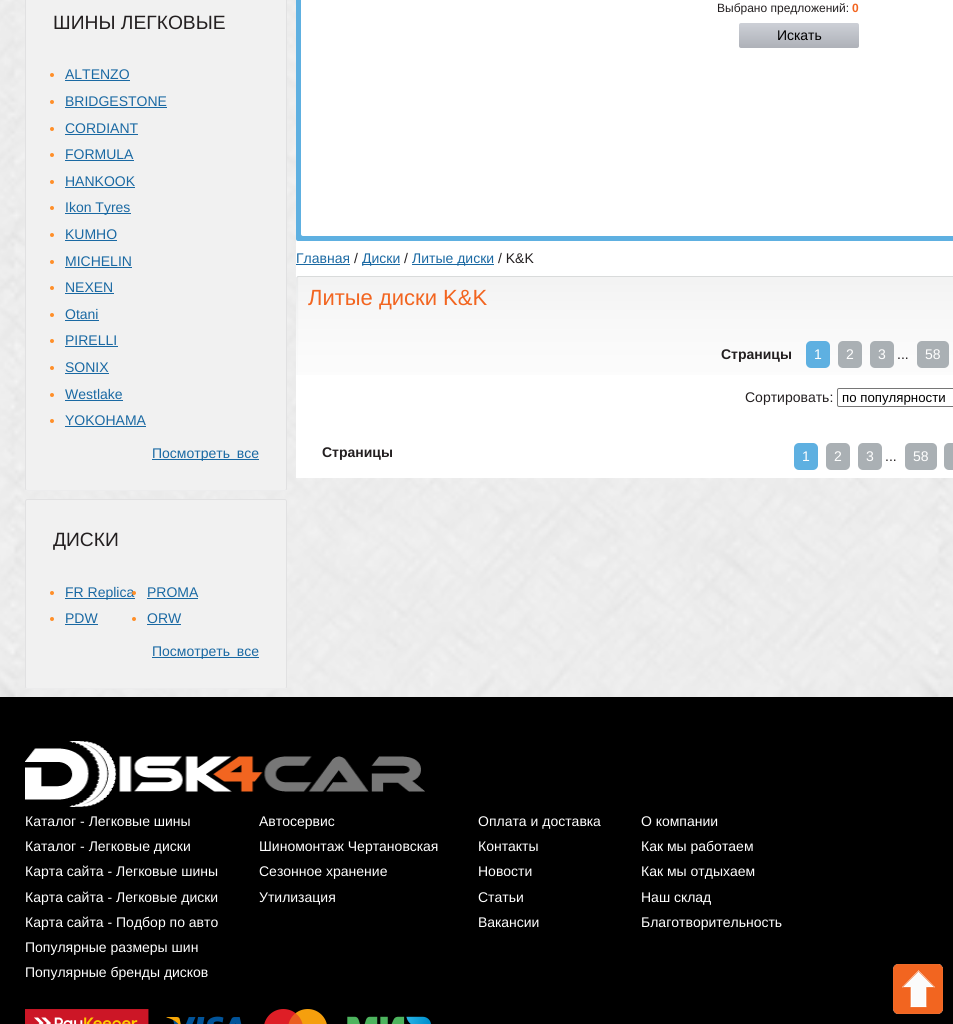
#include <cairo.h>
#include <math.h>
#include <stddef.h>


static void set_color(cairo_t *cr, unsigned color) {
    cairo_set_source_rgb(cr, (color >> 16) / 255.0, (color >> 8 & 255) / 255.0, (color & 255) / 255.0);
}

static void draw_text(cairo_t *cr, double x, double y, const char *s, const char *family, double size, int italic, int bold, unsigned color) {
    cairo_select_font_face(cr, family, italic ? CAIRO_FONT_SLANT_ITALIC : CAIRO_FONT_SLANT_NORMAL,
        bold ? CAIRO_FONT_WEIGHT_BOLD : CAIRO_FONT_WEIGHT_NORMAL);
    cairo_set_font_size(cr, size);
    set_color(cr, color);
    cairo_move_to(cr, x, y);
    cairo_show_text(cr, s);
}

static void draw_spaced(cairo_t *cr, double x, double y, const char *s, double letter, double word) {
    cairo_move_to(cr, x, y);
    while (*s) {
        char ch[5] = {0};
        int n = 0;
        do ch[n++] = *s++; while ((*s & 0xC0) == 0x80);
        cairo_show_text(cr, ch);
        cairo_rel_move_to(cr, letter + word * (*ch == ' '), 0);
    }
}

static void fill_rect(cairo_t *cr, double x, double y, double w, double h, unsigned color) {
    set_color(cr, color);
    cairo_rectangle(cr, x, y, w, h);
    cairo_fill(cr);
}

static void rounded_rect(cairo_t *cr, double x, double y, double w, double h, double r) {
    cairo_new_sub_path(cr);
    cairo_arc(cr, x + w - r, y + h - r, r, 0, M_PI / 2);
    cairo_arc(cr, x + r, y + h - r, r, M_PI / 2, M_PI);
    cairo_arc(cr, x + r, y + r, r, M_PI, 1.5 * M_PI);
    cairo_arc(cr, x + w - r, y + r, r, 1.5 * M_PI, 2 * M_PI);
    cairo_close_path(cr);
}

static void draw_image(cairo_t *cr, const char *path, double x, double y, double w, double h) {
    cairo_surface_t *image = cairo_image_surface_create_from_png(path);
    cairo_save(cr);
    cairo_set_source_surface(cr, image, x, y);
    cairo_rectangle(cr, x, y, w, h);
    cairo_fill(cr);
    cairo_restore(cr);
    cairo_surface_destroy(image);
}

int main(void) {
    cairo_surface_t *surface = cairo_image_surface_create(CAIRO_FORMAT_RGB24, 953, 1024);
    cairo_t *cr = cairo_create(surface);
    cairo_font_options_t *options = cairo_font_options_create();
    cairo_font_options_set_hint_metrics(options, CAIRO_HINT_METRICS_OFF);
    cairo_font_options_set_hint_style(options, CAIRO_HINT_STYLE_NONE);
    cairo_set_font_options(cr, options);
    cairo_set_miter_limit(cr, 4);
    cairo_pattern_t *gradient;
    set_color(cr, 0xFFFFFF);
    cairo_paint(cr);
    draw_image(cr, "assets/img1.png", 0, 0, 953, 697);
    set_color(cr, 0xF1F1F1);
    rounded_rect(cr, 25, -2, 262, 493, 2);
    cairo_fill(cr);
    cairo_new_path(cr);
    cairo_move_to(cr, 286, 490);
    cairo_line_to(cr, 285, 490.5);
    cairo_line_to(cr, 27, 490.5);
    cairo_line_to(cr, 26, 490);
    set_color(cr, 0xECECED);
    cairo_set_line_width(cr, 1);
    cairo_stroke(cr);
    cairo_new_path(cr);
    cairo_move_to(cr, 26, 490);
    cairo_line_to(cr, 25.5, 489);
    cairo_line_to(cr, 25.5, -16);
    cairo_line_to(cr, 26, -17);
    cairo_line_to(cr, 27, -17.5);
    cairo_line_to(cr, 285, -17.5);
    cairo_line_to(cr, 286, -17);
    cairo_line_to(cr, 286.5, -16);
    cairo_line_to(cr, 286.5, 489);
    cairo_line_to(cr, 286, 490);
    set_color(cr, 0xE1E1E2);
    cairo_stroke(cr);
    draw_text(cr, 53, 29, "ШИНЫ ЛЕГКОВЫЕ", "Liberation Sans", 19.25, 0, 0, 0x231F20);
    set_color(cr, 0xFF8F29);
    cairo_new_path(cr);
    cairo_arc(cr, 52, 75, 2, 0, 2 * M_PI);
    cairo_fill(cr);
    draw_text(cr, 65, 79, "ALTENZO", "Liberation Sans", 14, 0, 0, 0x1A69A3);
    fill_rect(cr, 65, 80, 65, 1, 0x1A69A3);
    set_color(cr, 0xFF8F29);
    cairo_new_path(cr);
    cairo_arc(cr, 52, 102, 2, 0, 2 * M_PI);
    cairo_fill(cr);
    draw_text(cr, 65, 106, "BRIDGESTONE", "Liberation Sans", 14, 0, 0, 0x1A69A3);
    fill_rect(cr, 65, 107, 102, 1, 0x1A69A3);
    set_color(cr, 0xFF8F29);
    cairo_new_path(cr);
    cairo_arc(cr, 52, 129, 2, 0, 2 * M_PI);
    cairo_fill(cr);
    draw_text(cr, 65, 133, "CORDIANT", "Liberation Sans", 14, 0, 0, 0x1A69A3);
    fill_rect(cr, 65, 134, 73, 1, 0x1A69A3);
    set_color(cr, 0xFF8F29);
    cairo_new_path(cr);
    cairo_arc(cr, 52, 155, 2, 0, 2 * M_PI);
    cairo_fill(cr);
    draw_text(cr, 65, 159, "FORMULA", "Liberation Sans", 14, 0, 0, 0x1A69A3);
    fill_rect(cr, 65, 160, 69, 1, 0x1A69A3);
    set_color(cr, 0xFF8F29);
    cairo_new_path(cr);
    cairo_arc(cr, 52, 182, 2, 0, 2 * M_PI);
    cairo_fill(cr);
    draw_text(cr, 65, 186, "HANKOOK", "Liberation Sans", 14, 0, 0, 0x1A69A3);
    fill_rect(cr, 65, 187, 70, 1, 0x1A69A3);
    set_color(cr, 0xFF8F29);
    cairo_new_path(cr);
    cairo_arc(cr, 52, 208, 2, 0, 2 * M_PI);
    cairo_fill(cr);
    fill_rect(cr, 65, 213, 66, 1, 0x1A69A3);
    draw_text(cr, 65, 212, "Ikon Tyres", "Liberation Sans", 14, 0, 0, 0x1A69A3);
    set_color(cr, 0xFF8F29);
    cairo_new_path(cr);
    cairo_arc(cr, 52, 235, 2, 0, 2 * M_PI);
    cairo_fill(cr);
    draw_text(cr, 65, 239, "KUMHO", "Liberation Sans", 14, 0, 0, 0x1A69A3);
    fill_rect(cr, 65, 240, 52, 1, 0x1A69A3);
    set_color(cr, 0xFF8F29);
    cairo_new_path(cr);
    cairo_arc(cr, 52, 262, 2, 0, 2 * M_PI);
    cairo_fill(cr);
    draw_text(cr, 65, 266, "MICHELIN", "Liberation Sans", 14, 0, 0, 0x1A69A3);
    fill_rect(cr, 65, 267, 67, 1, 0x1A69A3);
    set_color(cr, 0xFF8F29);
    cairo_new_path(cr);
    cairo_arc(cr, 52, 288, 2, 0, 2 * M_PI);
    cairo_fill(cr);
    draw_text(cr, 65, 292, "NEXEN", "Liberation Sans", 14, 0, 0, 0x1A69A3);
    fill_rect(cr, 65, 293, 49, 1, 0x1A69A3);
    set_color(cr, 0xFF8F29);
    cairo_new_path(cr);
    cairo_arc(cr, 52, 315, 2, 0, 2 * M_PI);
    cairo_fill(cr);
    draw_text(cr, 65, 319, "Otani", "Liberation Sans", 14, 0, 0, 0x1A69A3);
    fill_rect(cr, 65, 320, 34, 1, 0x1A69A3);
    set_color(cr, 0xFF8F29);
    cairo_new_path(cr);
    cairo_arc(cr, 52, 341, 2, 0, 2 * M_PI);
    cairo_fill(cr);
    draw_text(cr, 65, 345, "PIRELLI", "Liberation Sans", 14, 0, 0, 0x1A69A3);
    fill_rect(cr, 65, 346, 53, 1, 0x1A69A3);
    set_color(cr, 0xFF8F29);
    cairo_new_path(cr);
    cairo_arc(cr, 52, 368, 2, 0, 2 * M_PI);
    cairo_fill(cr);
    draw_text(cr, 65, 372, "SONIX", "Liberation Sans", 14, 0, 0, 0x1A69A3);
    fill_rect(cr, 65, 373, 44, 1, 0x1A69A3);
    set_color(cr, 0xFF8F29);
    cairo_new_path(cr);
    cairo_arc(cr, 52, 395, 2, 0, 2 * M_PI);
    cairo_fill(cr);
    draw_text(cr, 65, 399, "Westlake", "Liberation Sans", 14, 0, 0, 0x1A69A3);
    fill_rect(cr, 65, 400, 58, 1, 0x1A69A3);
    set_color(cr, 0xFF8F29);
    cairo_new_path(cr);
    cairo_arc(cr, 52, 421, 2, 0, 2 * M_PI);
    cairo_fill(cr);
    draw_text(cr, 65, 425, "YOKOHAMA", "Liberation Sans", 14, 0, 0, 0x1A69A3);
    fill_rect(cr, 65, 426, 81, 1, 0x1A69A3);
    fill_rect(cr, 152, 459, 107, 1, 0x1A69A3);
    draw_spaced(cr, 152, 458, "Посмотреть все", 0, 3);
    set_color(cr, 0xF1F1F1);
    rounded_rect(cr, 25, 499, 262, 190, 2);
    cairo_fill(cr);
    cairo_new_path(cr);
    cairo_move_to(cr, 286, 688);
    cairo_line_to(cr, 285, 688.5);
    cairo_line_to(cr, 27, 688.5);
    cairo_line_to(cr, 26, 688);
    set_color(cr, 0xECECED);
    cairo_stroke(cr);
    cairo_new_path(cr);
    cairo_move_to(cr, 26, 688);
    cairo_line_to(cr, 25.5, 687);
    cairo_line_to(cr, 25.5, 501);
    cairo_line_to(cr, 26, 500);
    cairo_line_to(cr, 27, 499.5);
    cairo_line_to(cr, 285, 499.5);
    cairo_line_to(cr, 286, 500);
    cairo_line_to(cr, 286.5, 501);
    cairo_line_to(cr, 286.5, 687);
    cairo_line_to(cr, 286, 688);
    set_color(cr, 0xE1E1E2);
    cairo_stroke(cr);
    draw_text(cr, 53, 546, "ДИСКИ", "Liberation Sans", 19.25, 0, 0, 0x231F20);
    set_color(cr, 0xFF8F29);
    cairo_new_path(cr);
    cairo_arc(cr, 52, 593, 2, 0, 2 * M_PI);
    cairo_fill(cr);
    fill_rect(cr, 65, 598, 70, 1, 0x1A69A3);
    draw_text(cr, 65, 597, "FR Replica", "Liberation Sans", 14, 0, 0, 0x1A69A3);
    set_color(cr, 0xFF8F29);
    cairo_new_path(cr);
    cairo_arc(cr, 52, 619, 2, 0, 2 * M_PI);
    cairo_fill(cr);
    draw_text(cr, 65, 623, "PDW", "Liberation Sans", 14, 0, 0, 0x1A69A3);
    fill_rect(cr, 65, 624, 33, 1, 0x1A69A3);
    set_color(cr, 0xFF8F29);
    cairo_new_path(cr);
    cairo_arc(cr, 134, 593, 2, 0, 2 * M_PI);
    cairo_fill(cr);
    draw_text(cr, 147, 597, "PROMA", "Liberation Sans", 14, 0, 0, 0x1A69A3);
    fill_rect(cr, 147, 598, 51, 1, 0x1A69A3);
    set_color(cr, 0xFF8F29);
    cairo_new_path(cr);
    cairo_arc(cr, 134, 619, 2, 0, 2 * M_PI);
    cairo_fill(cr);
    draw_text(cr, 147, 623, "ORW", "Liberation Sans", 14, 0, 0, 0x1A69A3);
    fill_rect(cr, 147, 624, 34, 1, 0x1A69A3);
    fill_rect(cr, 152, 657, 107, 1, 0x1A69A3);
    draw_spaced(cr, 152, 656, "Посмотреть все", 0, 3);
    fill_rect(cr, 296, 239, 657, 239, 0xFFFFFF);
    set_color(cr, 0x5EB0E1);
    rounded_rect(cr, 296, -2, 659, 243, 2);
    cairo_fill(cr);
    set_color(cr, 0xFFFFFF);
    rounded_rect(cr, 301, -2, 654, 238, 2);
    cairo_fill(cr);
    draw_text(cr, 717, 12, "Выбрано предложений:", "Liberation Sans", 12, 0, 0, 0x231F20);
    draw_text(cr, 852, 12, "0", "Liberation Sans", 12, 0, 1, 0xF26520);
    gradient = cairo_pattern_create_linear(799, 23, 799, 48);
    cairo_pattern_add_color_stop_rgba(gradient, 0, 0.804, 0.816, 0.843, 1);
    cairo_pattern_add_color_stop_rgba(gradient, 1, 0.682, 0.694, 0.722, 1);
    cairo_set_source(cr, gradient);
    cairo_pattern_destroy(gradient);
    rounded_rect(cr, 739, 23, 120, 25, 2);
    cairo_fill(cr);
    draw_text(cr, 777, 40, "Искать", "Liberation Sans", 14, 0, 0, 0x000000);
    draw_text(cr, 296, 263, "Главная", "Liberation Sans", 14, 0, 0, 0x1A69A3);
    fill_rect(cr, 296, 264, 54, 1, 0x1A69A3);
    draw_text(cr, 354, 263, "/", "Liberation Sans", 14, 0, 0, 0x231F20);
    fill_rect(cr, 362, 264, 38, 1, 0x1A69A3);
    draw_text(cr, 362, 263, "Диски", "Liberation Sans", 14, 0, 0, 0x1A69A3);
    draw_text(cr, 404, 263, "/", "Liberation Sans", 14, 0, 0, 0x231F20);
    fill_rect(cr, 412, 264, 82, 1, 0x1A69A3);
    draw_text(cr, 412, 263, "Литые диски", "Liberation Sans", 14, 0, 0, 0x1A69A3);
    draw_text(cr, 498, 263, "/ K&K", "Liberation Sans", 14, 0, 0, 0x231F20);
    draw_image(cr, "assets/img2.png", 296, 276, 657, 99);
    draw_text(cr, 308, 305, "Литые диски K&K", "Liberation Sans", 22, 0, 0, 0xF26520);
    draw_text(cr, 721, 359, "Страницы", "Liberation Sans", 14, 0, 1, 0x231F20);
    set_color(cr, 0x5EB0E1);
    rounded_rect(cr, 806, 341, 24, 27, 5);
    cairo_fill(cr);
    draw_text(cr, 814, 359, "1", "Liberation Sans", 14, 0, 0, 0xFFFFFF);
    set_color(cr, 0xAAB0B4);
    rounded_rect(cr, 838, 341, 24, 27, 5);
    cairo_fill(cr);
    draw_text(cr, 846, 359, "2", "Liberation Sans", 14, 0, 0, 0xFFFFFF);
    set_color(cr, 0xAAB0B4);
    rounded_rect(cr, 870, 341, 24, 27, 5);
    cairo_fill(cr);
    draw_text(cr, 878, 359, "3", "Liberation Sans", 14, 0, 0, 0xFFFFFF);
    draw_text(cr, 897, 359, "...", "Liberation Sans", 14, 0, 0, 0x231F20);
    set_color(cr, 0xAAB0B4);
    rounded_rect(cr, 917, 341, 32, 27, 5);
    cairo_fill(cr);
    draw_text(cr, 925, 359, "58", "Liberation Sans", 14, 0, 0, 0xFFFFFF);
    draw_text(cr, 745, 402, "Сортировать:", "Liberation Sans", 14, 0, 0, 0x231F20);
    rounded_rect(cr, 837.5, 388.5, 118, 18, 1.5);
    set_color(cr, 0x767676);
    cairo_stroke(cr);
    draw_text(cr, 842, 402, "по популярности", "Liberation Sans", 13.25, 0, 0, 0x000000);
    draw_text(cr, 322, 457, "Страницы", "Liberation Sans", 14, 0, 1, 0x231F20);
    set_color(cr, 0x5EB0E1);
    rounded_rect(cr, 794, 443, 24, 27, 5);
    cairo_fill(cr);
    draw_text(cr, 802, 461, "1", "Liberation Sans", 14, 0, 0, 0xFFFFFF);
    set_color(cr, 0xAAB0B4);
    rounded_rect(cr, 826, 443, 24, 27, 5);
    cairo_fill(cr);
    draw_text(cr, 834, 461, "2", "Liberation Sans", 14, 0, 0, 0xFFFFFF);
    set_color(cr, 0xAAB0B4);
    rounded_rect(cr, 858, 443, 24, 27, 5);
    cairo_fill(cr);
    draw_text(cr, 866, 461, "3", "Liberation Sans", 14, 0, 0, 0xFFFFFF);
    draw_text(cr, 885, 461, "...", "Liberation Sans", 14, 0, 0, 0x231F20);
    set_color(cr, 0xAAB0B4);
    rounded_rect(cr, 905, 443, 32, 27, 5);
    cairo_fill(cr);
    draw_text(cr, 913, 461, "58", "Liberation Sans", 14, 0, 0, 0xFFFFFF);
    set_color(cr, 0xAAB0B4);
    rounded_rect(cr, 944, 443, 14, 27, 5);
    cairo_fill(cr);
    fill_rect(cr, 0, 697, 953, 327, 0x000000);
    draw_image(cr, "assets/img3.png", 25, 741, 400, 66);
    draw_text(cr, 25, 826, "Каталог - Легковые шины", "Liberation Sans", 14, 0, 0, 0xFFFFFF);
    draw_text(cr, 25, 851, "Каталог - Легковые диски", "Liberation Sans", 14, 0, 0, 0xFFFFFF);
    draw_text(cr, 25, 876, "Карта сайта - Легковые шины", "Liberation Sans", 14, 0, 0, 0xFFFFFF);
    draw_text(cr, 25, 902, "Карта сайта - Легковые диски", "Liberation Sans", 14, 0, 0, 0xFFFFFF);
    draw_text(cr, 25, 927, "Карта сайта - Подбор по авто", "Liberation Sans", 14, 0, 0, 0xFFFFFF);
    draw_text(cr, 25, 952, "Популярные размеры шин", "Liberation Sans", 14, 0, 0, 0xFFFFFF);
    draw_text(cr, 25, 977, "Популярные бренды дисков", "Liberation Sans", 14, 0, 0, 0xFFFFFF);
    draw_text(cr, 259, 826, "Автосервис", "Liberation Sans", 14, 0, 0, 0xFFFFFF);
    draw_text(cr, 259, 851, "Шиномонтаж Чертановская", "Liberation Sans", 14, 0, 0, 0xFFFFFF);
    draw_text(cr, 259, 876, "Сезонное хранение", "Liberation Sans", 14, 0, 0, 0xFFFFFF);
    draw_text(cr, 259, 902, "Утилизация", "Liberation Sans", 14, 0, 0, 0xFFFFFF);
    draw_text(cr, 478, 826, "Оплата и доставка", "Liberation Sans", 14, 0, 0, 0xFFFFFF);
    draw_text(cr, 478, 851, "Контакты", "Liberation Sans", 14, 0, 0, 0xFFFFFF);
    draw_text(cr, 478, 876, "Новости", "Liberation Sans", 14, 0, 0, 0xFFFFFF);
    draw_text(cr, 478, 902, "Статьи", "Liberation Sans", 14, 0, 0, 0xFFFFFF);
    draw_text(cr, 478, 927, "Вакансии", "Liberation Sans", 14, 0, 0, 0xFFFFFF);
    draw_text(cr, 641, 826, "О компании", "Liberation Sans", 14, 0, 0, 0xFFFFFF);
    draw_text(cr, 641, 851, "Как мы работаем", "Liberation Sans", 14, 0, 0, 0xFFFFFF);
    draw_text(cr, 641, 876, "Как мы отдыхаем", "Liberation Sans", 14, 0, 0, 0xFFFFFF);
    draw_text(cr, 641, 902, "Наш склад", "Liberation Sans", 14, 0, 0, 0xFFFFFF);
    draw_text(cr, 641, 927, "Благотворительность", "Liberation Sans", 14, 0, 0, 0xFFFFFF);
    draw_image(cr, "assets/img4.png", 25, 1009, 406, 15);
    draw_image(cr, "assets/img5.png", 893, 964, 50, 50);
    cairo_surface_write_to_png(surface, "output.png");
    cairo_font_options_destroy(options);
    cairo_destroy(cr);
    cairo_surface_destroy(surface);
    return 0;
}
